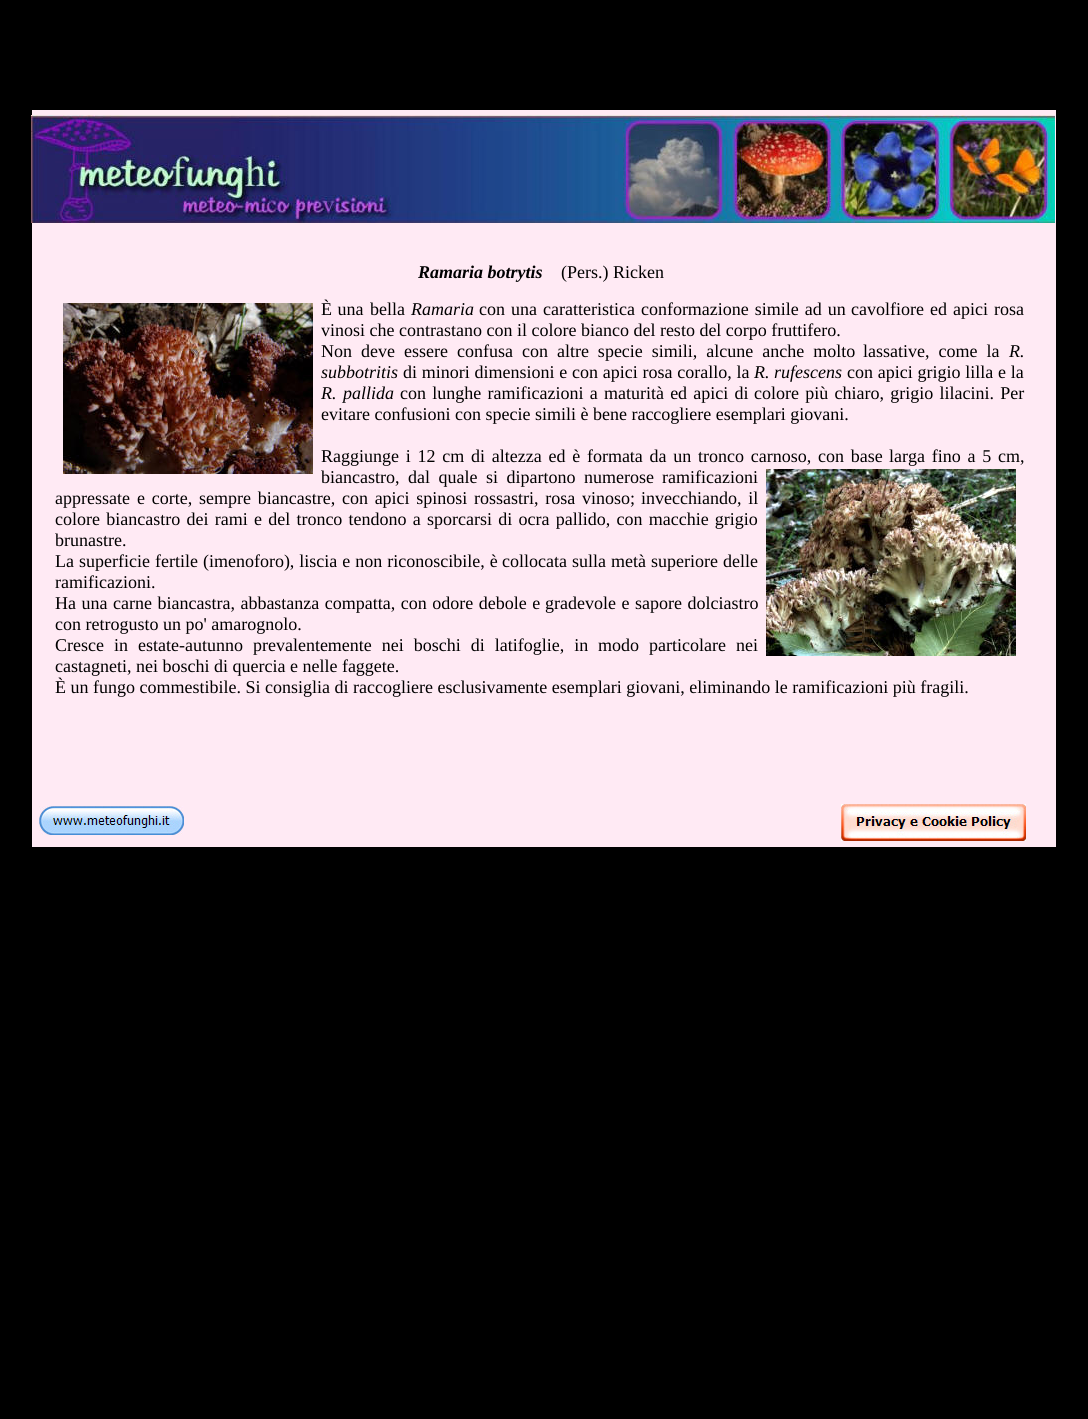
#include <cairo.h>
#include <math.h>
#include <stddef.h>


static void set_color(cairo_t *cr, unsigned color) {
    cairo_set_source_rgb(cr, (color >> 16) / 255.0, (color >> 8 & 255) / 255.0, (color & 255) / 255.0);
}

static void draw_text(cairo_t *cr, double x, double y, const char *s, const char *family, double size, int italic, int bold, unsigned color) {
    cairo_select_font_face(cr, family, italic ? CAIRO_FONT_SLANT_ITALIC : CAIRO_FONT_SLANT_NORMAL,
        bold ? CAIRO_FONT_WEIGHT_BOLD : CAIRO_FONT_WEIGHT_NORMAL);
    cairo_set_font_size(cr, size);
    set_color(cr, color);
    cairo_move_to(cr, x, y);
    cairo_show_text(cr, s);
}

static void draw_spaced(cairo_t *cr, double x, double y, const char *s, double letter, double word) {
    cairo_move_to(cr, x, y);
    while (*s) {
        char ch[5] = {0};
        int n = 0;
        do ch[n++] = *s++; while ((*s & 0xC0) == 0x80);
        cairo_show_text(cr, ch);
        cairo_rel_move_to(cr, letter + word * (*ch == ' '), 0);
    }
}

static void fill_rect(cairo_t *cr, double x, double y, double w, double h, unsigned color) {
    set_color(cr, color);
    cairo_rectangle(cr, x, y, w, h);
    cairo_fill(cr);
}

static void draw_image(cairo_t *cr, const char *path, double x, double y, double w, double h) {
    cairo_surface_t *image = cairo_image_surface_create_from_png(path);
    cairo_save(cr);
    cairo_set_source_surface(cr, image, x, y);
    cairo_rectangle(cr, x, y, w, h);
    cairo_fill(cr);
    cairo_restore(cr);
    cairo_surface_destroy(image);
}

int main(void) {
    cairo_surface_t *surface = cairo_image_surface_create(CAIRO_FORMAT_RGB24, 1088, 1419);
    cairo_t *cr = cairo_create(surface);
    cairo_font_options_t *options = cairo_font_options_create();
    cairo_font_options_set_hint_metrics(options, CAIRO_HINT_METRICS_OFF);
    cairo_font_options_set_hint_style(options, CAIRO_HINT_STYLE_NONE);
    cairo_set_font_options(cr, options);
    cairo_set_miter_limit(cr, 4);
    set_color(cr, 0x000000);
    cairo_paint(cr);
    fill_rect(cr, 32, 110, 1024, 737, 0xFFEAF4);
    draw_image(cr, "assets/img1.png", 31, 115, 1024, 108);
    draw_text(cr, 418, 278, "Ramaria botrytis", "Liberation Serif", 18, 1, 1, 0x000000);
    draw_text(cr, 561, 278, "(Pers.) Ricken", "Liberation Serif", 18, 0, 0, 0x000000);
    draw_image(cr, "assets/img2.png", 63, 303, 250, 171);
    draw_spaced(cr, 321, 315, "È una", 0, 1);
    draw_text(cr, 370, 315, "bella", "Liberation Serif", 18, 0, 0, 0x000000);
    draw_text(cr, 411, 315, "Ramaria", "Liberation Serif", 18, 1, 0, 0x000000);
    cairo_select_font_face(cr, "Liberation Serif", CAIRO_FONT_SLANT_NORMAL, CAIRO_FONT_WEIGHT_NORMAL);
    draw_spaced(cr, 479, 315, "con una caratteristica conformazione simile ad un", 0, 1.5);
    draw_spaced(cr, 851, 315, "cavolfiore ed apici rosa", 0, 1.5);
    draw_text(cr, 321, 336, "vinosi che contrastano con il colore bianco del resto del corpo fruttifero.", "Liberation Serif", 18, 0, 0, 0x000000);
    draw_spaced(cr, 321, 357, "Non deve essere confusa con altre specie simili, alcune anche molto", 0, 4.5);
    draw_spaced(cr, 863, 357, "lassative, come la", 0, 4.5);
    draw_text(cr, 1009, 357, "R.", "Liberation Serif", 18, 1, 0, 0x000000);
    draw_text(cr, 321, 378, "subbotritis", "Liberation Serif", 18, 1, 0, 0x000000);
    cairo_select_font_face(cr, "Liberation Serif", CAIRO_FONT_SLANT_NORMAL, CAIRO_FONT_WEIGHT_NORMAL);
    draw_spaced(cr, 403, 378, "di minori dimensioni e con apici rosa corallo, la", 0, 0.25);
    draw_text(cr, 754, 378, "R. rufescens", "Liberation Serif", 18, 1, 0, 0x000000);
    cairo_select_font_face(cr, "Liberation Serif", CAIRO_FONT_SLANT_NORMAL, CAIRO_FONT_WEIGHT_NORMAL);
    draw_spaced(cr, 847, 378, "con apici grigio lilla e la", 0, 0.25);
    cairo_select_font_face(cr, "Liberation Serif", CAIRO_FONT_SLANT_ITALIC, CAIRO_FONT_WEIGHT_NORMAL);
    draw_spaced(cr, 321, 399, "R. pallida", 0, 2);
    cairo_select_font_face(cr, "Liberation Serif", CAIRO_FONT_SLANT_NORMAL, CAIRO_FONT_WEIGHT_NORMAL);
    draw_spaced(cr, 400, 399, "con lunghe ramificazioni a maturità ed apici di", 0, 1.75);
    draw_spaced(cr, 754, 399, "colore più chiaro, grigio lilacini. Per", 0, 1.75);
    draw_text(cr, 321, 420, "evitare confusioni con specie simili è bene raccogliere esemplari giovani.", "Liberation Serif", 18, 0, 0, 0x000000);
    draw_spaced(cr, 321, 462, "Raggiunge i 12 cm di altezza ed è formata da un tronco carnoso, con base", 0, 2.25);
    draw_spaced(cr, 889, 462, "larga fino a 5 cm,", 0, 2.25);
    draw_spaced(cr, 321, 483, "biancastro, dal quale si dipartono numerose", 0, 4);
    draw_text(cr, 662, 483, "ramificazioni", "Liberation Serif", 18, 0, 0, 0x000000);
    draw_image(cr, "assets/img3.png", 766, 469, 250, 187);
    draw_text(cr, 55, 504, "appressate", "Liberation Serif", 18, 0, 0, 0x000000);
    draw_spaced(cr, 137, 504, "e corte, sempre biancastre, con apici spinosi rossastri, rosa vinoso;", 0, 2.25);
    draw_spaced(cr, 641, 504, "invecchiando, il", 0, 2.25);
    draw_spaced(cr, 55, 525, "colore biancastro dei rami e del tronco tendono a", 0, 1.75);
    draw_spaced(cr, 427, 525, "sporcarsi di ocra pallido, con macchie grigio", 0, 1.75);
    draw_text(cr, 55, 546, "brunastre.", "Liberation Serif", 18, 0, 0, 0x000000);
    draw_spaced(cr, 55, 567, "La superficie fertile (imenoforo), liscia e non riconoscibile, è", 0, 0.5);
    draw_spaced(cr, 502, 567, "collocata sulla metà superiore delle", 0, 0.5);
    draw_text(cr, 55, 588, "ramificazioni.", "Liberation Serif", 18, 0, 0, 0x000000);
    draw_spaced(cr, 55, 609, "Ha una carne biancastra, abbastanza compatta, con odore debole e", 0, 1);
    draw_spaced(cr, 545, 609, "gradevole e sapore dolciastro", 0, 1);
    draw_text(cr, 55, 630, "con retrogusto un po' amarognolo.", "Liberation Serif", 18, 0, 0, 0x000000);
    draw_spaced(cr, 55, 651, "Cresce in estate-autunno prevalentemente nei boschi di latifoglie, in", 0, 5.5);
    draw_spaced(cr, 598, 651, "modo particolare nei", 0, 5.5);
    draw_text(cr, 55, 672, "castagneti, nei boschi di quercia e nelle faggete.", "Liberation Serif", 18, 0, 0, 0x000000);
    draw_text(cr, 55, 693, "È un fungo commestibile. Si consiglia di raccogliere esclusivamente esemplari giovani, eliminando le ramificazioni più fragili.", "Liberation Serif", 18, 0, 0, 0x000000);
    draw_image(cr, "assets/img4.png", 39, 806, 145, 29);
    draw_image(cr, "assets/img5.png", 841, 804, 185, 37);
    cairo_surface_write_to_png(surface, "output.png");
    cairo_font_options_destroy(options);
    cairo_destroy(cr);
    cairo_surface_destroy(surface);
    return 0;
}
